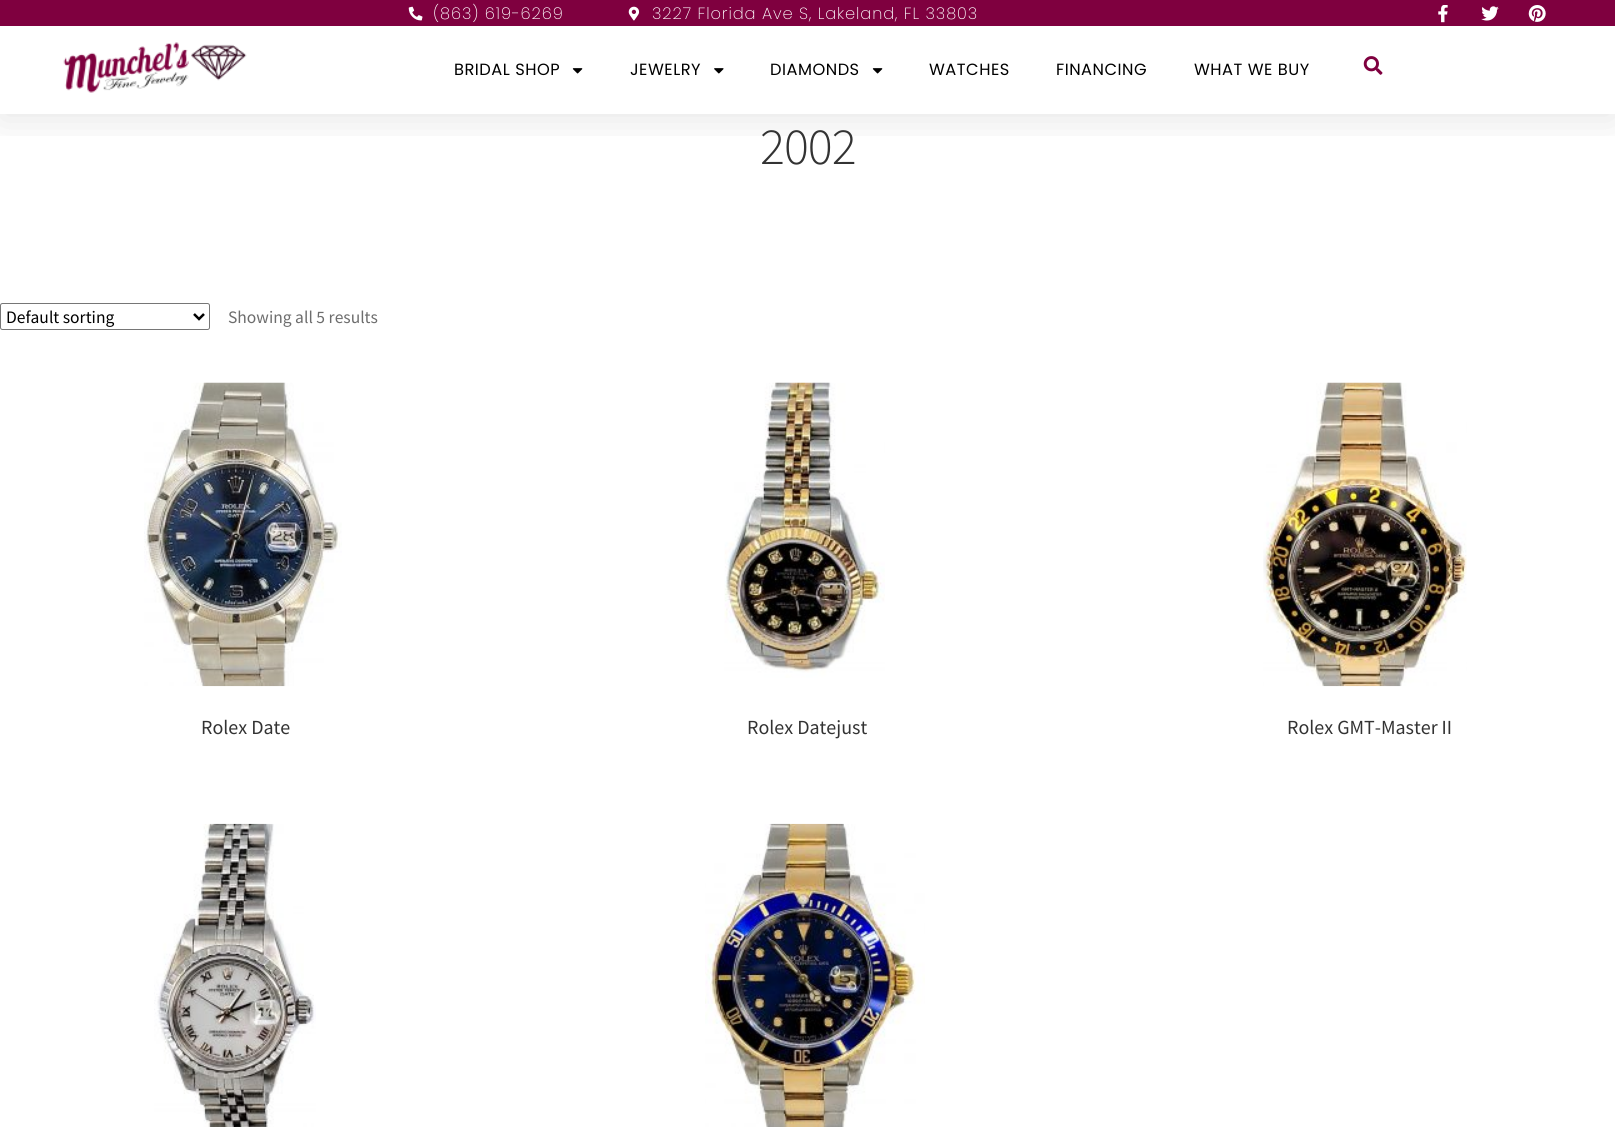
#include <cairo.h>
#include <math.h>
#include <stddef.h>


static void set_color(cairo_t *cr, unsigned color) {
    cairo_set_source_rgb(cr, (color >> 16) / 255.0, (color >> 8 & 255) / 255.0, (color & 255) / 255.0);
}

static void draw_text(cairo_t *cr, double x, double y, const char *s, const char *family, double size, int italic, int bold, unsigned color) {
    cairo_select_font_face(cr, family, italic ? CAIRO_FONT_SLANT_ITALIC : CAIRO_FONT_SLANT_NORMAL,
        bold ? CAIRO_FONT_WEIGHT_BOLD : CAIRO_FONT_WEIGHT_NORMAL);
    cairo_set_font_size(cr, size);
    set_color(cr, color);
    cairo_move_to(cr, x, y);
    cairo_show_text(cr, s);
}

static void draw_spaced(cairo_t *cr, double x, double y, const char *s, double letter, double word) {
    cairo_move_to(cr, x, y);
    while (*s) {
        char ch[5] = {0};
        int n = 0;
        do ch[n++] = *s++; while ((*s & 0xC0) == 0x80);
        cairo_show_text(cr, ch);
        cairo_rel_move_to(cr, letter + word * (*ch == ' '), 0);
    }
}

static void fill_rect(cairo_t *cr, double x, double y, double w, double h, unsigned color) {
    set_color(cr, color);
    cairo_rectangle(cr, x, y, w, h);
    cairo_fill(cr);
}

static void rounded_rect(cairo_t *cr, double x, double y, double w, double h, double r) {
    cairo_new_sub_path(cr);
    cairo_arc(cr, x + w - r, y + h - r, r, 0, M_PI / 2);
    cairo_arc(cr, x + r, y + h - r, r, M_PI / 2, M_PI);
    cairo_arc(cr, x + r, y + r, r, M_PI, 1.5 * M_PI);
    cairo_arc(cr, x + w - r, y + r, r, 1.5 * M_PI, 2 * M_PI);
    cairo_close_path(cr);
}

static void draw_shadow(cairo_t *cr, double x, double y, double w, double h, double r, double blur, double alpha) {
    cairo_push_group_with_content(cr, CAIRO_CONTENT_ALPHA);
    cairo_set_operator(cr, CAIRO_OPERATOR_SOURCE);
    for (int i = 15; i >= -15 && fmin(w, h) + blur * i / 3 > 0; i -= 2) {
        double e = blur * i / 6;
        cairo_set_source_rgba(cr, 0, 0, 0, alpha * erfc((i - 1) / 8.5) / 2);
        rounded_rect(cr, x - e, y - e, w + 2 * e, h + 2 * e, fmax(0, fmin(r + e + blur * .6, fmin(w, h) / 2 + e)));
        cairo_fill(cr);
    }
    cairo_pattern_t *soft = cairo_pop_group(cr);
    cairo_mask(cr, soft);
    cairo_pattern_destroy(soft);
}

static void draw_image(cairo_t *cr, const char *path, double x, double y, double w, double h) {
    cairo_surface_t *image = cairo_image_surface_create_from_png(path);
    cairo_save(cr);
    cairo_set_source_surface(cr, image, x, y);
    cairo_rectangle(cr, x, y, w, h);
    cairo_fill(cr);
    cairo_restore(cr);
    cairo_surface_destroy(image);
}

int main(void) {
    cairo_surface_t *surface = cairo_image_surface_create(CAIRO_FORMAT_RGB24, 1615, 1127);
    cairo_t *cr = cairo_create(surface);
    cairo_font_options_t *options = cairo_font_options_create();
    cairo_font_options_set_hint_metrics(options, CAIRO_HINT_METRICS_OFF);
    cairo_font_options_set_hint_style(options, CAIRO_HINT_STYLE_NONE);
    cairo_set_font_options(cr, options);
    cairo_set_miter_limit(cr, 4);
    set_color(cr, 0xFFFFFF);
    cairo_paint(cr);
    cairo_save(cr);
    cairo_rectangle(cr, 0, 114, 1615, 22);
    cairo_clip(cr);
    set_color(cr, 0x000000);
    draw_shadow(cr, 0, 6, 1615, 114, 0, 19, 0.1);
    cairo_restore(cr);
    fill_rect(cr, 0, 0, 1615, 26, 0x7F003F);
    draw_image(cr, "assets/img1.png", 408, 6, 15, 15);
    cairo_select_font_face(cr, "Poppins ExtraLight", CAIRO_FONT_SLANT_NORMAL, CAIRO_FONT_WEIGHT_NORMAL);
    cairo_set_font_size(cr, 16.25);
    set_color(cr, 0xFFFFFF);
    draw_spaced(cr, 433, 19, "(863) 619-6269", 0.9, 0);
    draw_image(cr, "assets/img2.png", 628, 6, 12, 15);
    draw_spaced(cr, 652, 19, "3227 Florida Ave S, Lakeland, FL 33803", 0.9, 0);
    draw_image(cr, "assets/img3.png", 1438, 5, 10, 18);
    draw_image(cr, "assets/img4.png", 1481, 6, 18, 15);
    draw_image(cr, "assets/img5.png", 1528, 5, 18, 17);
    cairo_set_source_rgba(cr, 1, 1, 1, 0.89);
    cairo_rectangle(cr, 11, 113, 1593, 1);
    cairo_fill(cr);
    draw_image(cr, "assets/img6.png", 63, 42, 184, 51);
    cairo_select_font_face(cr, "Poppins", CAIRO_FONT_SLANT_NORMAL, CAIRO_FONT_WEIGHT_NORMAL);
    set_color(cr, 0x000000);
    draw_spaced(cr, 454, 75, "BRIDAL SHOP", 0.5, 0);
    draw_image(cr, "assets/img7.png", 572, 68, 11, 6);
    draw_spaced(cr, 630, 75, "JEWELRY", 0.5, 0);
    draw_image(cr, "assets/img8.png", 714, 68, 10, 6);
    draw_spaced(cr, 770, 75, "DIAMONDS", 0.5, 0);
    draw_image(cr, "assets/img7.png", 872, 68, 11, 6);
    draw_spaced(cr, 929, 75, "WATCHES", 0.5, 0);
    draw_spaced(cr, 1056, 75, "FINANCING", 0.5, 0);
    draw_spaced(cr, 1194, 75, "WHAT WE BUY", 0.5, 0);
    draw_image(cr, "assets/img9.png", 1363, 56, 20, 19);
    cairo_select_font_face(cr, "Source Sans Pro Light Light", CAIRO_FONT_SLANT_NORMAL, CAIRO_FONT_WEIGHT_NORMAL);
    cairo_set_font_size(cr, 52);
    set_color(cr, 0x333333);
    draw_spaced(cr, 760, 164, "2002", -1, 0);
    rounded_rect(cr, 0.5, 303.5, 209, 26, 2);
    set_color(cr, 0x767676);
    cairo_set_line_width(cr, 1);
    cairo_stroke(cr);
    cairo_new_path(cr);
    cairo_move_to(cr, 194, 314);
    cairo_line_to(cr, 199, 319);
    cairo_line_to(cr, 204, 314);
    set_color(cr, 0x000000);
    cairo_set_line_width(cr, 2.5);
    cairo_stroke(cr);
    draw_text(cr, 6, 323, "Default sorting", "Source Sans Pro", 17.5, 0, 0, 0x000000);
    draw_text(cr, 228, 323, "Showing all 5 results", "Source Sans Pro", 17.5, 0, 0, 0x6D6D6D);
    draw_image(cr, "assets/img10.png", 144, 382, 198, 305);
    draw_text(cr, 201, 734, "Rolex Date", "Source Sans Pro", 20, 0, 0, 0x333333);
    draw_image(cr, "assets/img11.png", 724, 382, 161, 296);
    draw_text(cr, 747, 734, "Rolex Datejust", "Source Sans Pro", 20, 0, 0, 0x333333);
    draw_image(cr, "assets/img12.png", 1263, 382, 204, 305);
    draw_text(cr, 1287, 734, "Rolex GMT-Master II", "Source Sans Pro", 20, 0, 0, 0x333333);
    draw_image(cr, "assets/img13.png", 154, 823, 162, 304);
    draw_image(cr, "assets/img14.png", 705, 823, 220, 304);
    cairo_surface_write_to_png(surface, "output.png");
    cairo_font_options_destroy(options);
    cairo_destroy(cr);
    cairo_surface_destroy(surface);
    return 0;
}
